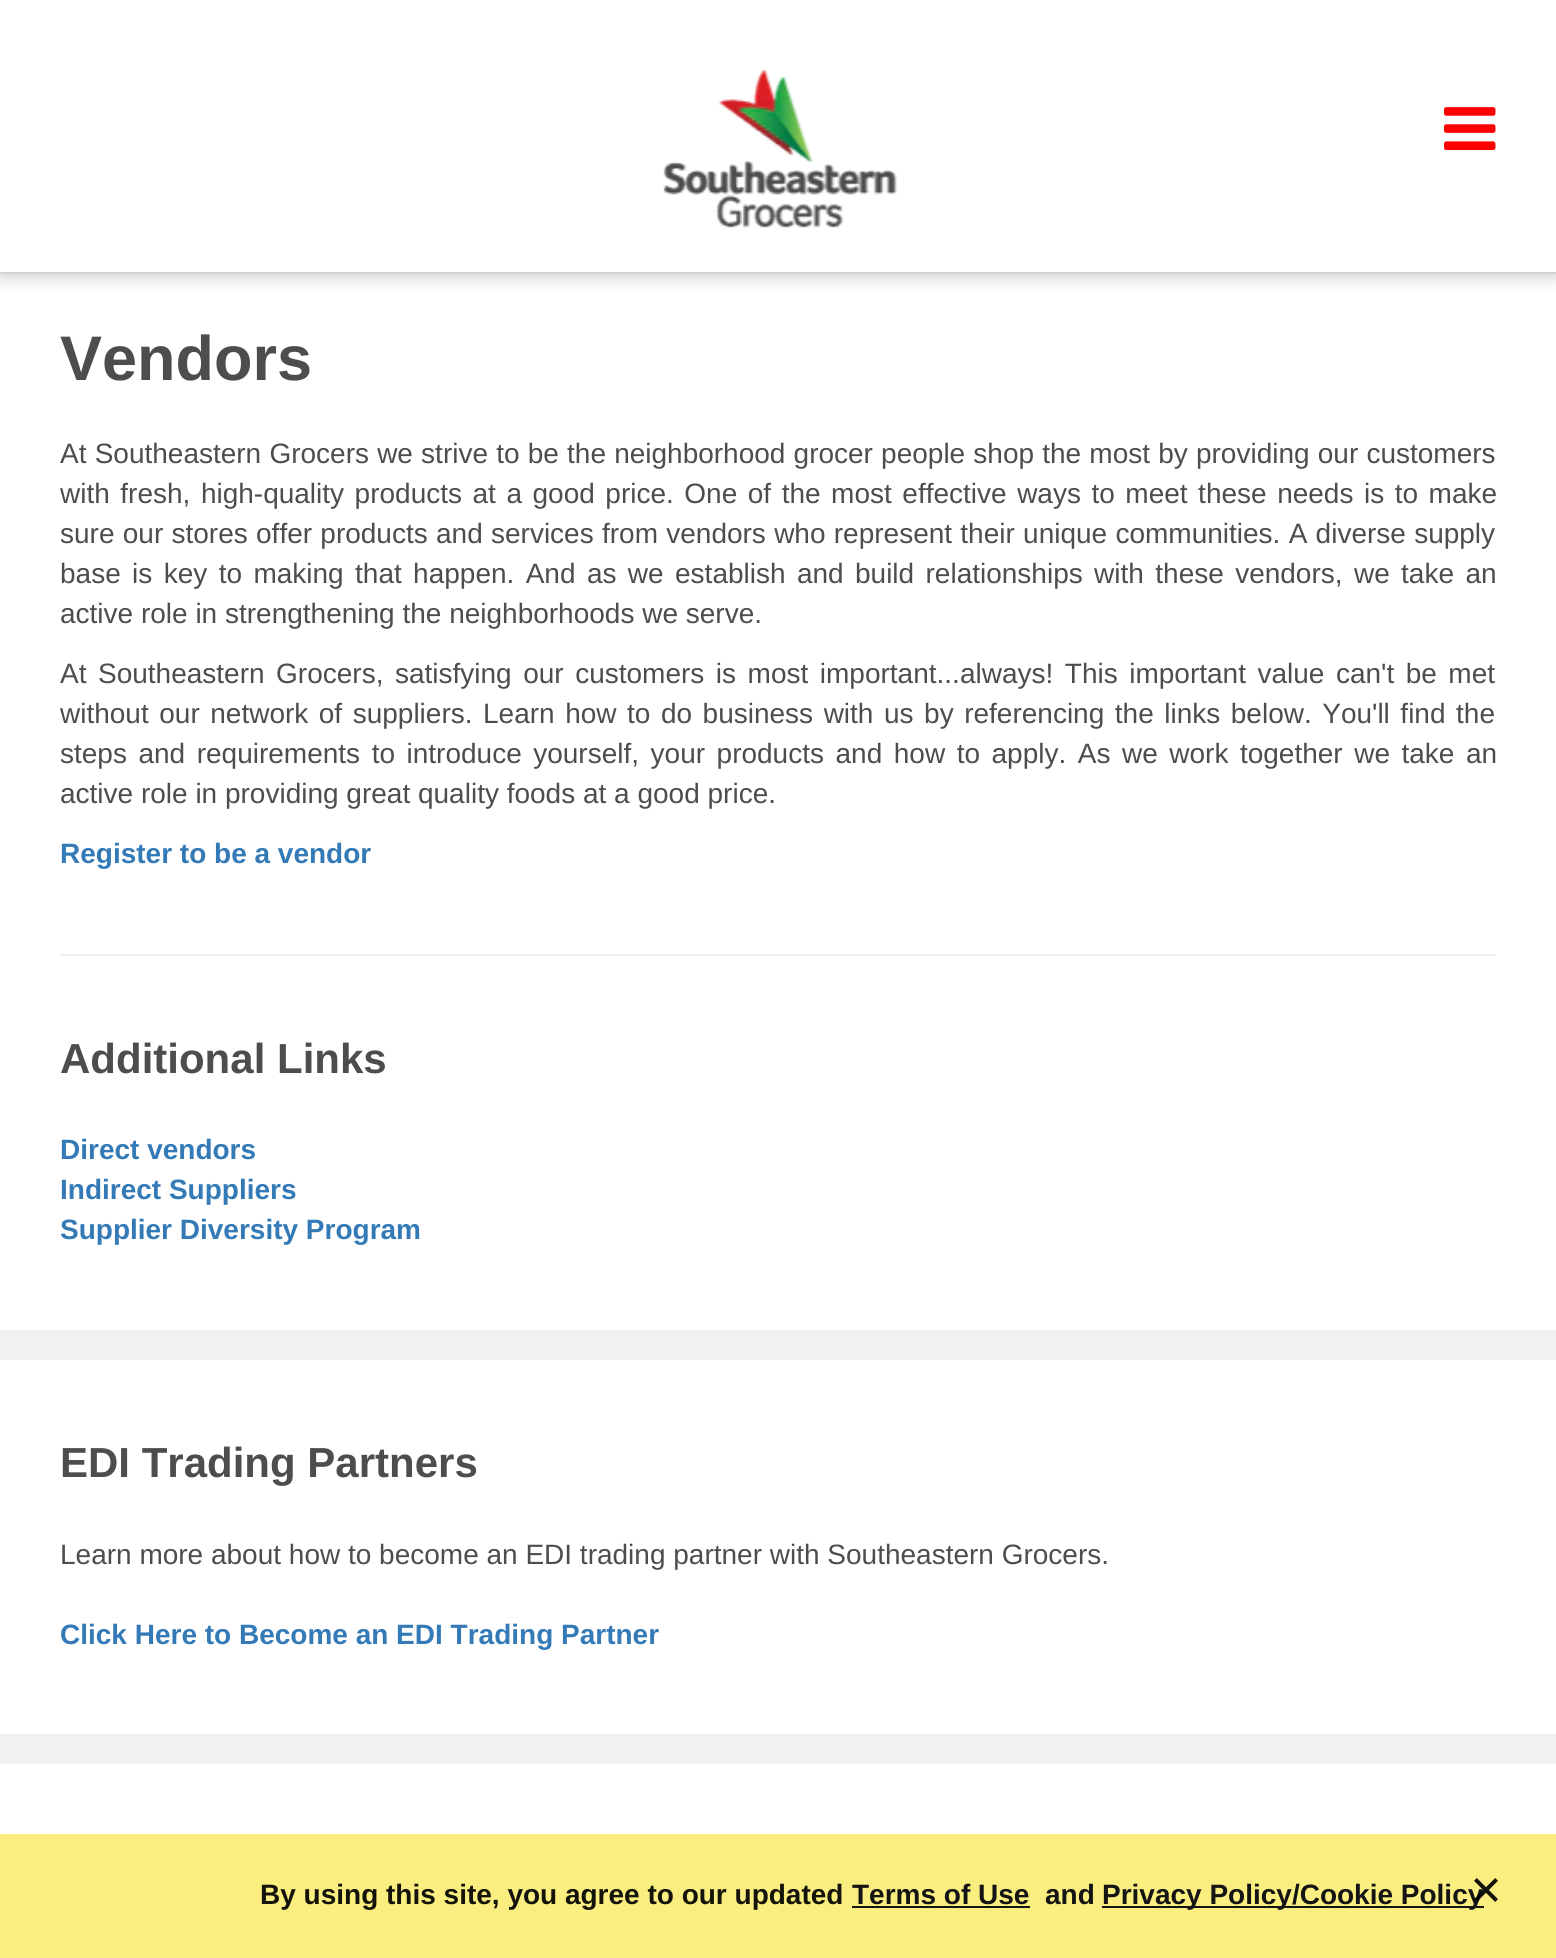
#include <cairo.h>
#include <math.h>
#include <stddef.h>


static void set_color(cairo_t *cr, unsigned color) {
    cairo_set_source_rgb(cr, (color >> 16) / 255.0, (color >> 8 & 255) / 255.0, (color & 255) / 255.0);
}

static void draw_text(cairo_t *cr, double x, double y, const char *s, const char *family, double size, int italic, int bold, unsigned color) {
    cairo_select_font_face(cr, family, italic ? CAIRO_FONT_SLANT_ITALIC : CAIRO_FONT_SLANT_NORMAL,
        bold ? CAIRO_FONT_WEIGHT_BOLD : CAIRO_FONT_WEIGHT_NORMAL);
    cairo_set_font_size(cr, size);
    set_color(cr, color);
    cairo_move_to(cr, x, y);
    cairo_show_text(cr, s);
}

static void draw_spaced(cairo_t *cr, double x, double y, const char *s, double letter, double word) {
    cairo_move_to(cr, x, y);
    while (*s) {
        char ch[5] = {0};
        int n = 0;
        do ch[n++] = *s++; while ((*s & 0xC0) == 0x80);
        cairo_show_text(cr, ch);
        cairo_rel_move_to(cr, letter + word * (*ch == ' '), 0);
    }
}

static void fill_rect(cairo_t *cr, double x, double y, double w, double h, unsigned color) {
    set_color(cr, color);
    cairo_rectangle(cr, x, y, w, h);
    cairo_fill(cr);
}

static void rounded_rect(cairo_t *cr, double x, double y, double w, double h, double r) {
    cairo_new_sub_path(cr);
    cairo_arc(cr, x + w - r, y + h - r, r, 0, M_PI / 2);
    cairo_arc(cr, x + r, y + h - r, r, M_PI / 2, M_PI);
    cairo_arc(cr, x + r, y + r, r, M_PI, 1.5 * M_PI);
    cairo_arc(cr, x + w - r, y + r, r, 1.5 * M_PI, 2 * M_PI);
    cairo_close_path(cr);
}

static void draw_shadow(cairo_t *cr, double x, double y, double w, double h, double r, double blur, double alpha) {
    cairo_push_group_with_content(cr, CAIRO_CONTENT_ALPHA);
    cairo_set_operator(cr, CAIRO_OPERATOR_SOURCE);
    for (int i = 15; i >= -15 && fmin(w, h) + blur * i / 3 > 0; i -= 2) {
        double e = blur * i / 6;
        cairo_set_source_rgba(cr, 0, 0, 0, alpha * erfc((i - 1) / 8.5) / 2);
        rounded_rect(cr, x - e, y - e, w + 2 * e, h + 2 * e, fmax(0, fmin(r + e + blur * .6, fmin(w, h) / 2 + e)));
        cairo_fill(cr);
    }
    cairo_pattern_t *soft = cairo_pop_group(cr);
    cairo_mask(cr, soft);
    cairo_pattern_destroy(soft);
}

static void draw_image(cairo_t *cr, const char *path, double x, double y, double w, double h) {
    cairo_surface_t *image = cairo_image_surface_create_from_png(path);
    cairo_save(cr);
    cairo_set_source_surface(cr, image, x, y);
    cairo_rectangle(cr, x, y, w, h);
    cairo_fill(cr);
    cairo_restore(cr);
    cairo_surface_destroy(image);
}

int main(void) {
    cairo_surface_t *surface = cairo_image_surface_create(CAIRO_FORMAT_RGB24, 1556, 1958);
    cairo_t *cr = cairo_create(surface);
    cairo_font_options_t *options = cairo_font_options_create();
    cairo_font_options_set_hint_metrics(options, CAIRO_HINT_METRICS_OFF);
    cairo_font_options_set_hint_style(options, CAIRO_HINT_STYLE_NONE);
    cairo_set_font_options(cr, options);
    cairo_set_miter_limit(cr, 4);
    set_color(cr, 0xF1F1F1);
    cairo_paint(cr);
    fill_rect(cr, 0, 274, 1556, 1056, 0xFFFFFF);
    set_color(cr, 0x000000);
    draw_shadow(cr, 0, 2, 1556, 272, 0, 10, 0.25);
    fill_rect(cr, 0, 0, 1556, 272, 0xFFFFFF);
    draw_image(cr, "assets/img1.png", 663, 70, 234, 158);
    draw_image(cr, "assets/img2.png", 1444, 107, 52, 43);
    draw_text(cr, 60, 380, "Vendors", "Liberation Sans", 63, 0, 1, 0x4D4D4F);
    cairo_select_font_face(cr, "Liberation Sans", CAIRO_FONT_SLANT_NORMAL, CAIRO_FONT_WEIGHT_NORMAL);
    cairo_set_font_size(cr, 28);
    draw_spaced(cr, 60, 463, "At Southeastern Grocers we strive to be the neighborhood grocer people shop the most by providing our customers", 0, 0.4);
    draw_spaced(cr, 60, 503, "with fresh, high-quality products at a good price. One of the most effective ways to meet these needs is to make", 0, 2.75);
    draw_spaced(cr, 60, 543, "sure our stores offer products and services from vendors who represent their unique communities. A diverse supply", 0, 0.5);
    draw_spaced(cr, 60, 583, "base is key to making that happen. And as we establish and build relationships with these vendors, we take an", 0, 3.6);
    draw_text(cr, 60, 623, "active role in strengthening the neighborhoods we serve.", "Liberation Sans", 28, 0, 0, 0x4D4D4F);
    draw_spaced(cr, 60, 683, "At Southeastern Grocers, satisfying our customers is most important...always! This important value can't be met", 0, 3.75);
    draw_spaced(cr, 60, 723, "without our network of suppliers. Learn how to do business with us by referencing the links below. You'll find the", 0, 2.75);
    draw_spaced(cr, 60, 763, "steps and requirements to introduce yourself, your products and how to apply. As we work together we take an", 0, 3.75);
    draw_text(cr, 60, 803, "active role in providing great quality foods at a good price.", "Liberation Sans", 28, 0, 0, 0x4D4D4F);
    draw_text(cr, 60, 863, "Register to be a vendor", "Liberation Sans", 28, 0, 1, 0x337AB7);
    fill_rect(cr, 60, 954, 1436, 2, 0xEEEEEE);
    draw_text(cr, 60, 1073, "Additional Links", "Liberation Sans", 42, 0, 1, 0x4D4D4F);
    draw_text(cr, 60, 1159, "Direct vendors", "Liberation Sans", 28, 0, 1, 0x337AB7);
    draw_text(cr, 60, 1199, "Indirect Suppliers", "Liberation Sans", 28, 0, 1, 0x337AB7);
    draw_text(cr, 60, 1239, "Supplier Diversity Program", "Liberation Sans", 28, 0, 1, 0x337AB7);
    fill_rect(cr, 0, 1360, 1556, 374, 0xFFFFFF);
    draw_text(cr, 60, 1477, "EDI Trading Partners", "Liberation Sans", 42, 0, 1, 0x4D4D4F);
    draw_text(cr, 60, 1564, "Learn more about how to become an EDI trading partner with Southeastern Grocers.", "Liberation Sans", 28, 0, 0, 0x4D4D4F);
    draw_text(cr, 60, 1644, "Click Here to Become an EDI Trading Partner", "Liberation Sans", 28, 0, 1, 0x337AB7);
    fill_rect(cr, 0, 1764, 1556, 70, 0xFFFFFF);
    fill_rect(cr, 0, 1834, 1556, 124, 0xF9EE7F);
    draw_text(cr, 260, 1904, "By using this site, you agree to our updated", "Liberation Sans", 28, 0, 1, 0x14130A);
    draw_text(cr, 852, 1904, "Terms of Use", "Liberation Sans", 28, 0, 1, 0x141414);
    fill_rect(cr, 852, 1906, 178, 2, 0x141414);
    draw_text(cr, 1045, 1904, "and", "Liberation Sans", 28, 0, 1, 0x141414);
    fill_rect(cr, 1102, 1906, 382, 2, 0x141414);
    draw_text(cr, 1102, 1904, "Privacy Policy/Cookie Policy", "Liberation Sans", 28, 0, 1, 0x141414);
    draw_image(cr, "assets/img3.png", 1474, 1878, 24, 24);
    cairo_surface_write_to_png(surface, "output.png");
    cairo_font_options_destroy(options);
    cairo_destroy(cr);
    cairo_surface_destroy(surface);
    return 0;
}
